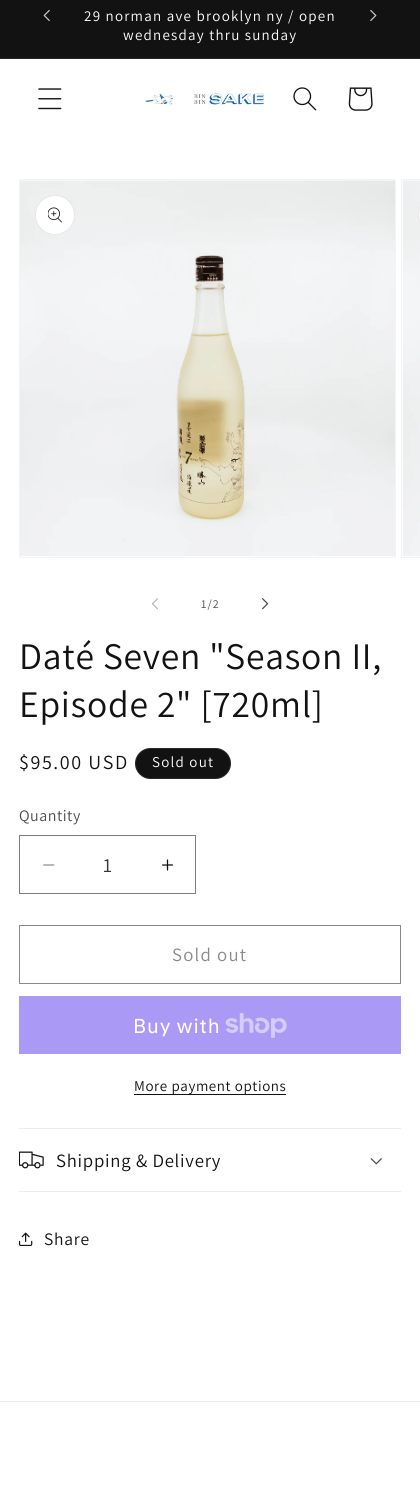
#include <cairo.h>
#include <math.h>
#include <stddef.h>


static void set_color(cairo_t *cr, unsigned color) {
    cairo_set_source_rgb(cr, (color >> 16) / 255.0, (color >> 8 & 255) / 255.0, (color & 255) / 255.0);
}

static void draw_text(cairo_t *cr, double x, double y, const char *s, const char *family, double size, int italic, int bold, unsigned color) {
    cairo_select_font_face(cr, family, italic ? CAIRO_FONT_SLANT_ITALIC : CAIRO_FONT_SLANT_NORMAL,
        bold ? CAIRO_FONT_WEIGHT_BOLD : CAIRO_FONT_WEIGHT_NORMAL);
    cairo_set_font_size(cr, size);
    set_color(cr, color);
    cairo_move_to(cr, x, y);
    cairo_show_text(cr, s);
}

static void draw_spaced(cairo_t *cr, double x, double y, const char *s, double letter, double word) {
    cairo_move_to(cr, x, y);
    while (*s) {
        char ch[5] = {0};
        int n = 0;
        do ch[n++] = *s++; while ((*s & 0xC0) == 0x80);
        cairo_show_text(cr, ch);
        cairo_rel_move_to(cr, letter + word * (*ch == ' '), 0);
    }
}

static void fill_rect(cairo_t *cr, double x, double y, double w, double h, unsigned color) {
    set_color(cr, color);
    cairo_rectangle(cr, x, y, w, h);
    cairo_fill(cr);
}

static void rounded_rect(cairo_t *cr, double x, double y, double w, double h, double r) {
    cairo_new_sub_path(cr);
    cairo_arc(cr, x + w - r, y + h - r, r, 0, M_PI / 2);
    cairo_arc(cr, x + r, y + h - r, r, M_PI / 2, M_PI);
    cairo_arc(cr, x + r, y + r, r, M_PI, 1.5 * M_PI);
    cairo_arc(cr, x + w - r, y + r, r, 1.5 * M_PI, 2 * M_PI);
    cairo_close_path(cr);
}

static void draw_image(cairo_t *cr, const char *path, double x, double y, double w, double h) {
    cairo_surface_t *image = cairo_image_surface_create_from_png(path);
    cairo_save(cr);
    cairo_set_source_surface(cr, image, x, y);
    cairo_rectangle(cr, x, y, w, h);
    cairo_fill(cr);
    cairo_restore(cr);
    cairo_surface_destroy(image);
}

int main(void) {
    cairo_surface_t *surface = cairo_image_surface_create(CAIRO_FORMAT_RGB24, 420, 1487);
    cairo_t *cr = cairo_create(surface);
    cairo_font_options_t *options = cairo_font_options_create();
    cairo_font_options_set_hint_metrics(options, CAIRO_HINT_METRICS_OFF);
    cairo_font_options_set_hint_style(options, CAIRO_HINT_STYLE_NONE);
    cairo_set_font_options(cr, options);
    cairo_set_miter_limit(cr, 4);
    set_color(cr, 0xFFFFFF);
    cairo_paint(cr);
    fill_rect(cr, 0, 0, 420, 58, 0x121212);
    fill_rect(cr, 0, 58, 420, 1, 0x252525);
    draw_image(cr, "assets/img1.png", 43, 9, 7, 13);
    cairo_select_font_face(cr, "Assistant", CAIRO_FONT_SLANT_NORMAL, CAIRO_FONT_WEIGHT_NORMAL);
    cairo_set_font_size(cr, 15);
    set_color(cr, 0xFFFFFF);
    draw_spaced(cr, 84, 21, "29 norman ave brooklyn ny / open", 1.25, 0);
    draw_spaced(cr, 123, 40, "wednesday thru sunday", 1.25, 0);
    draw_image(cr, "assets/img2.png", 370, 9, 7, 13);
    draw_image(cr, "assets/img3.png", 38, 88, 24, 22);
    draw_image(cr, "assets/img4.png", 145, 93, 120, 12);
    draw_image(cr, "assets/img5.png", 293, 87, 24, 24);
    draw_image(cr, "assets/img6.png", 348, 87, 25, 24);
    cairo_rectangle(cr, 19.5, 179.5, 376, 378);
    set_color(cr, 0xF3F3F3);
    cairo_set_line_width(cr, 1);
    cairo_stroke(cr);
    draw_image(cr, "assets/img7.png", 20, 180, 375, 377);
    set_color(cr, 0xFFFFFF);
    cairo_arc(cr, 55, 215, 20, 0, 2 * M_PI);
    cairo_fill(cr);
    cairo_arc(cr, 55, 215, 19.5, 0, 2 * M_PI);
    cairo_set_source_rgba(cr, 0.071, 0.071, 0.071, 0.1);
    cairo_stroke(cr);
    draw_image(cr, "assets/img8.png", 48, 207, 14, 16);
    cairo_rectangle(cr, 401.5, 179.5, 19, 378);
    set_color(cr, 0xF3F3F3);
    cairo_stroke(cr);
    draw_image(cr, "assets/img9.png", 402, 180, 18, 377);
    set_color(cr, 0xFFFFFF);
    cairo_new_path(cr);
    cairo_move_to(cr, 438, 195);
    cairo_line_to(cr, 420, 195);
    cairo_line_to(cr, 420, 235);
    cairo_line_to(cr, 438, 235);
    cairo_curve_to(cr, 427, 235, 418, 226, 418, 215);
    cairo_curve_to(cr, 418, 204, 427, 195, 438, 195);
    cairo_close_path(cr);
    cairo_fill(cr);
    rounded_rect(cr, 418.5, 195.5, 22, 39, 19.5);
    cairo_set_source_rgba(cr, 0.071, 0.071, 0.071, 0.1);
    cairo_stroke(cr);
    draw_image(cr, "assets/img10.png", 152, 598, 6, 12);
    cairo_set_font_size(cr, 12);
    set_color(cr, 0x4D4D4D);
    draw_spaced(cr, 201, 608, "1/2", 1, 0);
    draw_image(cr, "assets/img11.png", 262, 598, 7, 12);
    cairo_set_font_size(cr, 37.5);
    set_color(cr, 0x121212);
    draw_spaced(cr, 19, 669, "Daté Seven \"Season II,", 0.75, 0);
    draw_spaced(cr, 19, 717, "Episode 2\" [720ml]", 0.75, 0);
    cairo_set_font_size(cr, 20);
    draw_spaced(cr, 19, 769, "$95.00 USD", 1.6, 0);
    rounded_rect(cr, 135, 748, 96, 31, 15.5);
    cairo_fill(cr);
    rounded_rect(cr, 135.5, 748.5, 95, 30, 15);
    cairo_set_source_rgba(cr, 1, 1, 1, 0.1);
    cairo_stroke(cr);
    cairo_set_font_size(cr, 15);
    set_color(cr, 0xFFFFFF);
    draw_spaced(cr, 152, 767, "Sold out", 1.25, 0);
    cairo_set_font_size(cr, 16);
    set_color(cr, 0x4D4D4D);
    draw_spaced(cr, 19, 821, "Quantity", 0.5, 0);
    draw_image(cr, "assets/img12.png", 43, 864, 12, 2);
    draw_image(cr, "assets/img13.png", 162, 859, 12, 12);
    cairo_rectangle(cr, 19.5, 835.5, 176, 58);
    set_color(cr, 0x7D7D7D);
    cairo_stroke(cr);
    draw_text(cr, 103, 872, "1", "Assistant", 20, 0, 0, 0x363636);
    cairo_rectangle(cr, 19.5, 925.5, 381, 58);
    set_color(cr, 0x898989);
    cairo_stroke(cr);
    cairo_set_font_size(cr, 18.75);
    draw_spaced(cr, 172, 961, "Sold out", 1.25, 0);
    fill_rect(cr, 19, 996, 382, 58, 0xAA99F5);
    cairo_select_font_face(cr, "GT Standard", CAIRO_FONT_SLANT_NORMAL, CAIRO_FONT_WEIGHT_NORMAL);
    cairo_set_font_size(cr, 20);
    set_color(cr, 0xFFFFFF);
    draw_spaced(cr, 133, 1033, "Buy with", 0.75, 0);
    draw_image(cr, "assets/img14.png", 225, 1013, 62, 25);
    fill_rect(cr, 134, 1094, 152, 1, 0x121212);
    cairo_select_font_face(cr, "Assistant", CAIRO_FONT_SLANT_NORMAL, CAIRO_FONT_WEIGHT_NORMAL);
    cairo_set_font_size(cr, 15);
    draw_spaced(cr, 134, 1091, "More payment options", 0.6, 0);
    fill_rect(cr, 19, 1128, 382, 1, 0xECECEC);
    fill_rect(cr, 19, 1191, 382, 1, 0xECECEC);
    draw_image(cr, "assets/img15.png", 19, 1151, 25, 18);
    cairo_set_font_size(cr, 18.75);
    set_color(cr, 0x121212);
    draw_spaced(cr, 56, 1167, "Shipping & Delivery", 0.75, 0);
    draw_image(cr, "assets/img16.png", 370, 1158, 12, 7);
    draw_image(cr, "assets/img17.png", 18, 1232, 15, 14);
    cairo_set_font_size(cr, 17.5);
    draw_spaced(cr, 44, 1245, "Share", 0.75, 0);
    fill_rect(cr, 0, 1401, 420, 1, 0xECECEC);
    cairo_surface_write_to_png(surface, "output.png");
    cairo_font_options_destroy(options);
    cairo_destroy(cr);
    cairo_surface_destroy(surface);
    return 0;
}
